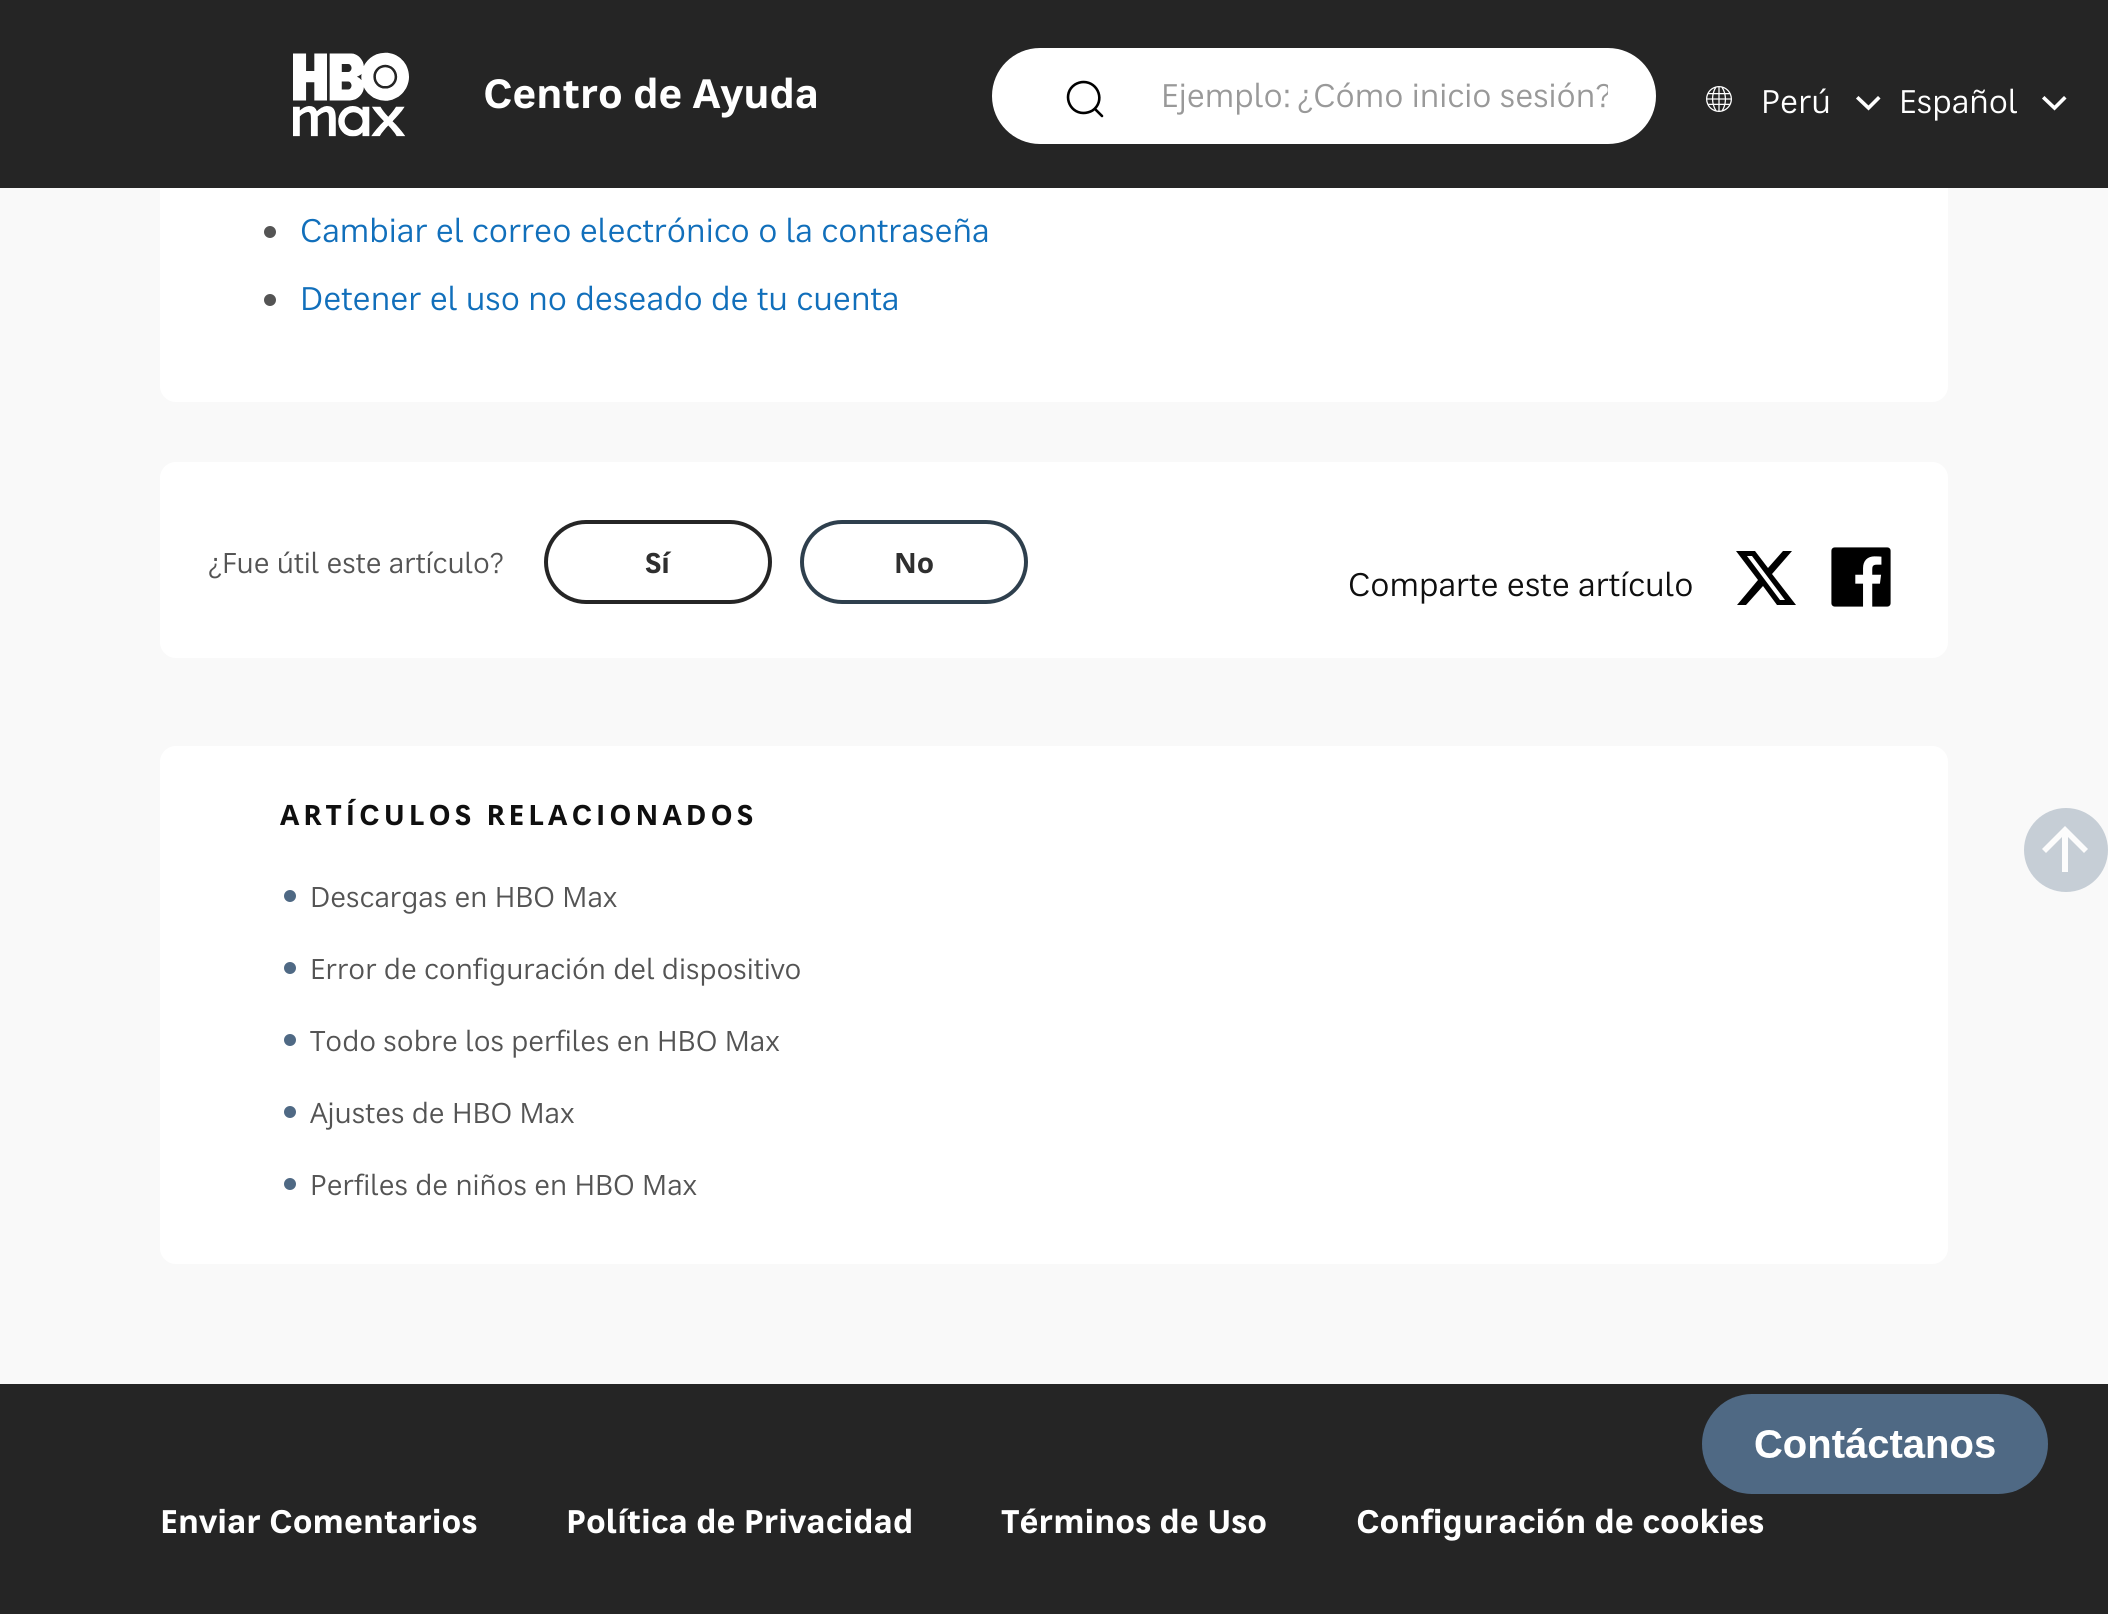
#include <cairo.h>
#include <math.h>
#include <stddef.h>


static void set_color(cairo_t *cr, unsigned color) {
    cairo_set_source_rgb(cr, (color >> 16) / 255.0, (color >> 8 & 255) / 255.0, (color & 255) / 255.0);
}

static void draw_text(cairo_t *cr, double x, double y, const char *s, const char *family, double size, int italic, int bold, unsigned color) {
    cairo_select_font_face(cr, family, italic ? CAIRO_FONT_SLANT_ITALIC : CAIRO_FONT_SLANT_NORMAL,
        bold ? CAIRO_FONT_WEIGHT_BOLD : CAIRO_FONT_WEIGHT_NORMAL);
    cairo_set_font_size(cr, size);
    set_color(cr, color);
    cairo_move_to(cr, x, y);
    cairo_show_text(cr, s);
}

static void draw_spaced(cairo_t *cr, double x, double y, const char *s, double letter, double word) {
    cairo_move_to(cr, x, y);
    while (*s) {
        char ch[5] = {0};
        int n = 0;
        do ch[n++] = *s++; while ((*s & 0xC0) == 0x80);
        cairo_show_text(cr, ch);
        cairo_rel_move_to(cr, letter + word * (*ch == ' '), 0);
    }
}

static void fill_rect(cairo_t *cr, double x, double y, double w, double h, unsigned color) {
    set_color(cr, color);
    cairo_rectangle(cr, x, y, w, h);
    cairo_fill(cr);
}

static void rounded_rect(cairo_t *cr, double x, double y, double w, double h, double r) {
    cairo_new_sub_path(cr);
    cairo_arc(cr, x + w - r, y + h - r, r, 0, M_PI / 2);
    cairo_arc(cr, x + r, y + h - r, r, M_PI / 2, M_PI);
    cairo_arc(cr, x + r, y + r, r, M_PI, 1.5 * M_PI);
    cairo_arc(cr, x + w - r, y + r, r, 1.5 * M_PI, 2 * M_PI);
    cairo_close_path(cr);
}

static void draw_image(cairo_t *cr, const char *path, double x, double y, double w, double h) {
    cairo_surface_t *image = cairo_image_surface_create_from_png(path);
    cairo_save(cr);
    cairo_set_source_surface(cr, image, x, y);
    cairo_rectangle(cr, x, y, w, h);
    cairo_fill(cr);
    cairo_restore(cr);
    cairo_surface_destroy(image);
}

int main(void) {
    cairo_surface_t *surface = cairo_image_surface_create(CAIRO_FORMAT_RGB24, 2108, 1614);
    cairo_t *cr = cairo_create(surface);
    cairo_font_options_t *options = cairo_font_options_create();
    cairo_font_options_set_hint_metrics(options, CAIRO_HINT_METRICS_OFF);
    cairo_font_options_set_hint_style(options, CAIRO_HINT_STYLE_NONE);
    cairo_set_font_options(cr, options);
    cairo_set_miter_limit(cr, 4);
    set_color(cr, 0xF9F9F9);
    cairo_paint(cr);
    set_color(cr, 0xFFFFFF);
    rounded_rect(cr, 160, -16, 1788, 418, 16);
    cairo_fill(cr);
    fill_rect(cr, 0, 0, 2108, 188, 0x252525);
    draw_image(cr, "assets/img1.png", 293, 52, 116, 85);
    draw_text(cr, 483, 108, "Centro de Ayuda", "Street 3", 40, 0, 1, 0xFFFFFF);
    rounded_rect(cr, 992, 48, 664, 96, 48);
    cairo_fill(cr);
    cairo_new_path(cr);
    cairo_move_to(cr, 1102, 116);
    cairo_line_to(cr, 1095.5, 109.5);
    cairo_move_to(cr, 1083.5, 82);
    cairo_curve_to(cr, 1080.5, 82, 1077.5, 83, 1075, 84.5);
    cairo_curve_to(cr, 1062, 93, 1068.5, 113, 1083.5, 113);
    cairo_curve_to(cr, 1086.5, 113, 1090, 112, 1092.5, 110.5);
    cairo_curve_to(cr, 1105.5, 101.5, 1098.5, 82, 1083.5, 82);
    set_color(cr, 0x000000);
    cairo_set_line_width(cr, 2.6);
    cairo_set_line_cap(cr, CAIRO_LINE_CAP_ROUND);
    cairo_stroke(cr);
    cairo_save(cr);
    cairo_rectangle(cr, 1160, 74, 448, 44);
    cairo_clip(cr);
    draw_text(cr, 1161, 107, "Ejemplo: ¿Cómo inicio sesión?", "Street 3", 32, 0, 0, 0x999999);
    cairo_restore(cr);
    draw_image(cr, "assets/img2.png", 1706, 86, 26, 26);
    cairo_new_path(cr);
    cairo_move_to(cr, 1858.5, 98.5);
    cairo_line_to(cr, 1868.5, 108);
    cairo_line_to(cr, 1878, 98.5);
    set_color(cr, 0xFFFFFF);
    cairo_set_line_width(cr, 3.6);
    cairo_set_line_cap(cr, CAIRO_LINE_CAP_SQUARE);
    cairo_stroke(cr);
    draw_text(cr, 1761, 113, "Perú", "Street 3", 32, 0, 0, 0xFFFFFF);
    cairo_new_path(cr);
    cairo_move_to(cr, 2044.5, 98.5);
    cairo_line_to(cr, 2054.5, 108);
    cairo_line_to(cr, 2064, 98.5);
    cairo_stroke(cr);
    draw_text(cr, 1899, 113, "Español", "Street 3", 32, 0, 0, 0xFFFFFF);
    set_color(cr, 0xC6CED6);
    cairo_new_path(cr);
    cairo_arc(cr, 2066, 850, 42, 0, 2 * M_PI);
    cairo_fill(cr);
    set_color(cr, 0xFCFCFC);
    cairo_new_path(cr);
    cairo_move_to(cr, 2042, 849);
    cairo_line_to(cr, 2046, 853);
    cairo_line_to(cr, 2062, 837);
    cairo_line_to(cr, 2062, 872);
    cairo_line_to(cr, 2068, 872);
    cairo_line_to(cr, 2068, 837);
    cairo_line_to(cr, 2084, 853);
    cairo_line_to(cr, 2088, 849);
    cairo_line_to(cr, 2065, 826);
    cairo_close_path(cr);
    cairo_fill(cr);
    set_color(cr, 0x545454);
    cairo_arc(cr, 270, 232, 6, 0, 2 * M_PI);
    cairo_fill(cr);
    draw_text(cr, 300, 242, "Cambiar el correo electrónico o la contraseña", "Street 3", 32, 0, 0, 0x116FBB);
    set_color(cr, 0x545454);
    cairo_new_path(cr);
    cairo_arc(cr, 270, 300, 6, 0, 2 * M_PI);
    cairo_fill(cr);
    draw_text(cr, 300, 310, "Detener el uso no deseado de tu cuenta", "Street 3", 32, 0, 0, 0x116FBB);
    set_color(cr, 0xFFFFFF);
    rounded_rect(cr, 160, 462, 1788, 196, 16);
    cairo_fill(cr);
    draw_text(cr, 210, 573, "¿Fue útil este artículo?", "Street 3", 28, 0, 0, 0x545454);
    rounded_rect(cr, 546, 522, 224, 80, 40);
    set_color(cr, 0x252525);
    cairo_set_line_width(cr, 4);
    cairo_set_line_cap(cr, CAIRO_LINE_CAP_BUTT);
    cairo_stroke(cr);
    draw_text(cr, 645, 573, "Sí", "Street 3", 28, 0, 1, 0x2F2F2F);
    rounded_rect(cr, 802, 522, 224, 80, 40);
    set_color(cr, 0x2E3F4D);
    cairo_stroke(cr);
    draw_text(cr, 894, 573, "No", "Street 3", 28, 0, 1, 0x2F2F2F);
    draw_text(cr, 1348, 596, "Comparte este artículo", "Street 3", 32, 0, 0, 0x0F0F0F);
    set_color(cr, 0x000000);
    cairo_new_path(cr);
    cairo_move_to(cr, 1783, 551);
    cairo_line_to(cr, 1792, 551);
    cairo_line_to(cr, 1772, 574);
    cairo_line_to(cr, 1796, 605);
    cairo_line_to(cr, 1777, 605);
    cairo_line_to(cr, 1763, 586);
    cairo_line_to(cr, 1746, 605);
    cairo_line_to(cr, 1737, 605);
    cairo_line_to(cr, 1758, 580);
    cairo_line_to(cr, 1736, 551);
    cairo_line_to(cr, 1755, 551);
    cairo_line_to(cr, 1768, 568);
    cairo_close_path(cr);
    cairo_move_to(cr, 1780, 600);
    cairo_line_to(cr, 1785, 600);
    cairo_line_to(cr, 1752, 556);
    cairo_line_to(cr, 1747, 556);
    cairo_close_path(cr);
    cairo_fill(cr);
    draw_image(cr, "assets/img3.png", 1831, 547, 60, 60);
    set_color(cr, 0xFFFFFF);
    rounded_rect(cr, 160, 746, 1788, 518, 16);
    cairo_fill(cr);
    cairo_select_font_face(cr, "Street 3", CAIRO_FONT_SLANT_NORMAL, CAIRO_FONT_WEIGHT_BOLD);
    cairo_set_font_size(cr, 28);
    set_color(cr, 0x0F0F0F);
    draw_spaced(cr, 280, 825, "ARTÍCULOS RELACIONADOS", 4, 0);
    set_color(cr, 0x4F6984);
    cairo_new_path(cr);
    cairo_arc(cr, 290, 896, 6, 0, 2 * M_PI);
    cairo_fill(cr);
    draw_text(cr, 310, 907, "Descargas en HBO Max", "Street 3", 28, 0, 0, 0x545454);
    set_color(cr, 0x4F6984);
    cairo_new_path(cr);
    cairo_arc(cr, 290, 968, 6, 0, 2 * M_PI);
    cairo_fill(cr);
    draw_text(cr, 310, 979, "Error de configuración del dispositivo", "Street 3", 28, 0, 0, 0x545454);
    set_color(cr, 0x4F6984);
    cairo_new_path(cr);
    cairo_arc(cr, 290, 1040, 6, 0, 2 * M_PI);
    cairo_fill(cr);
    draw_text(cr, 310, 1051, "Todo sobre los perfiles en HBO Max", "Street 3", 28, 0, 0, 0x545454);
    set_color(cr, 0x4F6984);
    cairo_new_path(cr);
    cairo_arc(cr, 290, 1112, 6, 0, 2 * M_PI);
    cairo_fill(cr);
    draw_text(cr, 310, 1123, "Ajustes de HBO Max", "Street 3", 28, 0, 0, 0x545454);
    set_color(cr, 0x4F6984);
    cairo_new_path(cr);
    cairo_arc(cr, 290, 1184, 6, 0, 2 * M_PI);
    cairo_fill(cr);
    draw_text(cr, 310, 1195, "Perfiles de niños en HBO Max", "Street 3", 28, 0, 0, 0x545454);
    fill_rect(cr, 0, 1384, 2108, 230, 0x252525);
    draw_text(cr, 160, 1533, "Enviar Comentarios", "Street 3", 32, 0, 1, 0xFFFFFF);
    draw_text(cr, 566, 1533, "Política de Privacidad", "Street 3", 32, 0, 1, 0xFFFFFF);
    draw_text(cr, 1001, 1533, "Términos de Uso", "Street 3", 32, 0, 1, 0xFFFFFF);
    draw_text(cr, 1356, 1533, "Configuración de cookies", "Street 3", 32, 0, 1, 0xFFFFFF);
    draw_image(cr, "assets/img4.png", 1702, 1394, 346, 100);
    cairo_surface_write_to_png(surface, "output.png");
    cairo_font_options_destroy(options);
    cairo_destroy(cr);
    cairo_surface_destroy(surface);
    return 0;
}
